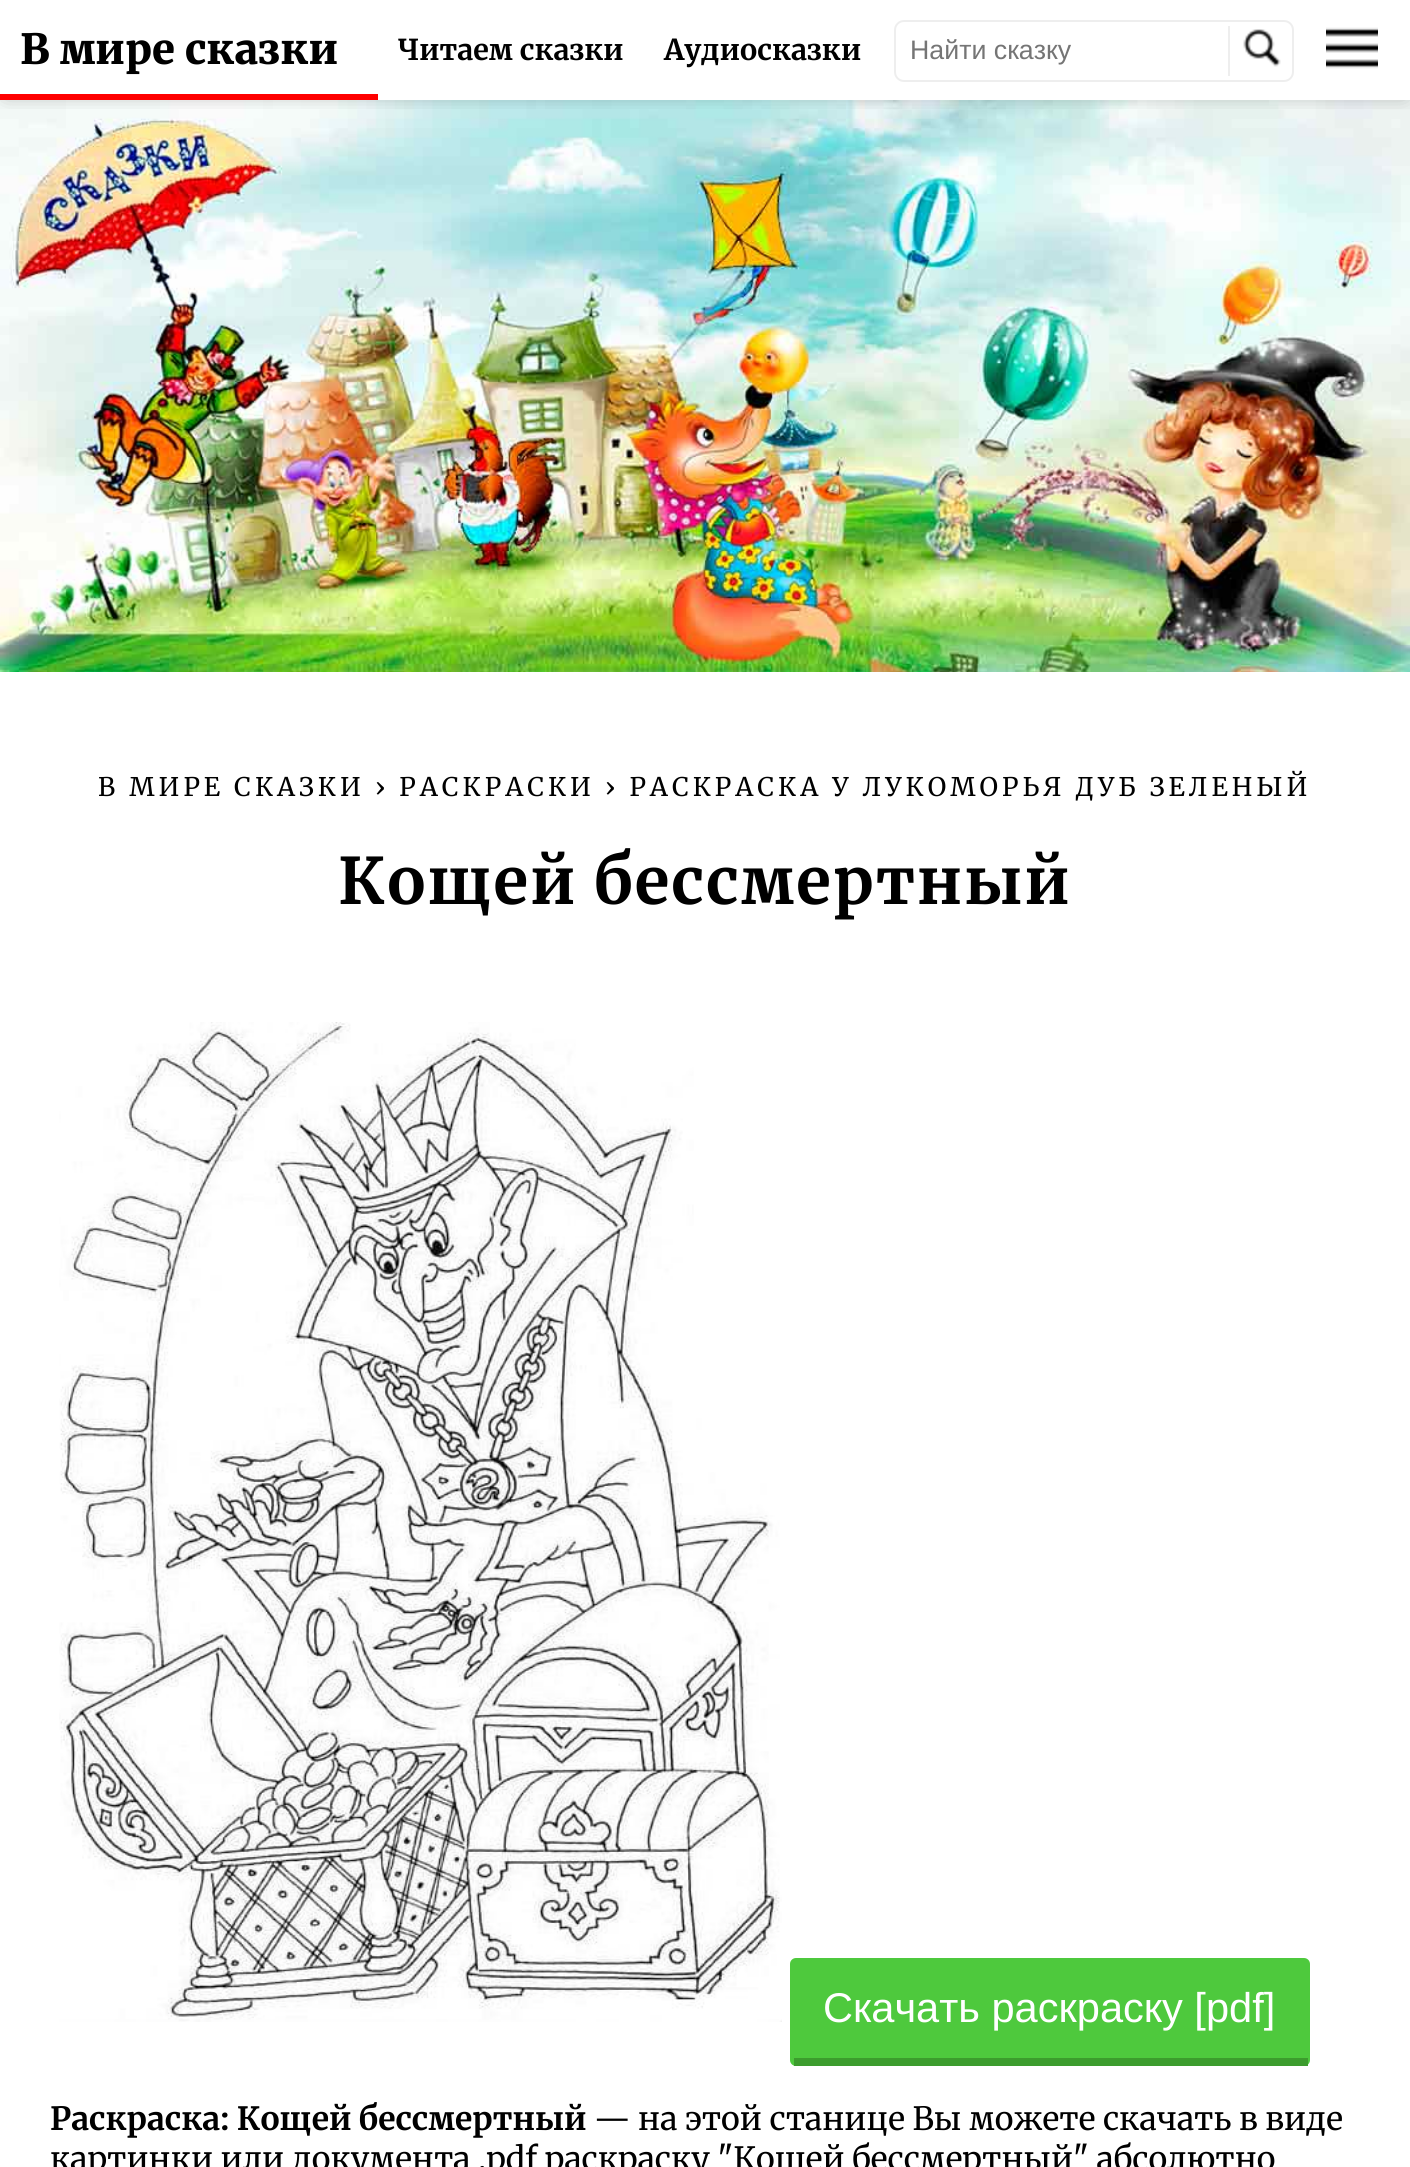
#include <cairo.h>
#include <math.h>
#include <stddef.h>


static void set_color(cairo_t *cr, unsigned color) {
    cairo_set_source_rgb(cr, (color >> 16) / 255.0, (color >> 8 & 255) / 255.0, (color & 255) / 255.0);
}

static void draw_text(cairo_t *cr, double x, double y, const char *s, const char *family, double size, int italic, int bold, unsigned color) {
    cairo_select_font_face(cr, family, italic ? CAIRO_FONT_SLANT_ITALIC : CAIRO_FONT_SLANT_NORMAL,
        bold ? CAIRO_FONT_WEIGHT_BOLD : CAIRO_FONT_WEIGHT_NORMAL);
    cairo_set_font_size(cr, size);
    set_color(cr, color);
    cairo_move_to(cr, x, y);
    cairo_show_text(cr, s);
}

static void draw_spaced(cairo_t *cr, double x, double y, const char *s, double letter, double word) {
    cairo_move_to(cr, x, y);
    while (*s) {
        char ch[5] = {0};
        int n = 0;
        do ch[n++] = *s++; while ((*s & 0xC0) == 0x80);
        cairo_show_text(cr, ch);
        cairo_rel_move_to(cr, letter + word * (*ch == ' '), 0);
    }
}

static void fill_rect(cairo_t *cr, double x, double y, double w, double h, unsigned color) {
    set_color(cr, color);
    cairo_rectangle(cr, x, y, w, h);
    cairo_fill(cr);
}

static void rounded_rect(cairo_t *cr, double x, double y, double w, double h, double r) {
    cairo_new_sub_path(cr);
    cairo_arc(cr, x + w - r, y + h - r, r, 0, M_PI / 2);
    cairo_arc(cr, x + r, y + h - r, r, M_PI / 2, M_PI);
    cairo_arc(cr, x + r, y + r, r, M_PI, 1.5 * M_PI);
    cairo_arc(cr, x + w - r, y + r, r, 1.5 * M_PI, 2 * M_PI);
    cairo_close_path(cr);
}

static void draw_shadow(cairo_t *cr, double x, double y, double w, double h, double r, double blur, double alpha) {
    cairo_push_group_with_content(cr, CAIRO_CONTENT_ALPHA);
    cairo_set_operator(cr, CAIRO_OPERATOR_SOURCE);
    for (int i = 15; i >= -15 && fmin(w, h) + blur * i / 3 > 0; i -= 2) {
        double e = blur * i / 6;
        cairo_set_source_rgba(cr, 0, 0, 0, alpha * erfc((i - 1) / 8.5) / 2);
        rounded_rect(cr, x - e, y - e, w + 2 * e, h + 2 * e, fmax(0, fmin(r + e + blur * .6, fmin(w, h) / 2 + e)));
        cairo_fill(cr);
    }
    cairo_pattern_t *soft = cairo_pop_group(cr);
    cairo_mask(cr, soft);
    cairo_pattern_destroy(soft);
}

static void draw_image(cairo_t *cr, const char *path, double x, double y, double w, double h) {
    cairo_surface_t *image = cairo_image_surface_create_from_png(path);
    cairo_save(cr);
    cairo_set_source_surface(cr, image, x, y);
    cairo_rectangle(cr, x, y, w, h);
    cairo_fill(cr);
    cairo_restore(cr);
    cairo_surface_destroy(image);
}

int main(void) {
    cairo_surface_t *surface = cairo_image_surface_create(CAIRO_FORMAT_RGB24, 1410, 2167);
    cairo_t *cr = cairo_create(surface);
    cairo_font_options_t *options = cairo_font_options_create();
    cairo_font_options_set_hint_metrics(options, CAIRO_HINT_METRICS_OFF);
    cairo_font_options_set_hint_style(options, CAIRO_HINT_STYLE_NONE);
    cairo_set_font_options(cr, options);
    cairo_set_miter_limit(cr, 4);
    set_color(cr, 0xFFFFFF);
    cairo_paint(cr);
    draw_image(cr, "assets/img3.png", 0, 100, 1410, 572);
    cairo_save(cr);
    cairo_rectangle(cr, 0, 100, 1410, 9);
    cairo_clip(cr);
    set_color(cr, 0x000000);
    draw_shadow(cr, 6, 6, 1398, 88, 0, 10, 0.32);
    cairo_restore(cr);
    fill_rect(cr, 0, 94, 378, 6, 0xFF0000);
    draw_text(cr, 20, 64, "В мире сказки", "Merriweather Black", 41.6, 0, 0, 0x000000);
    draw_text(cr, 398, 60, "Читаем сказки", "Merriweather", 28.75, 0, 1, 0x000000);
    draw_text(cr, 664, 60, "Аудиосказки", "Merriweather", 28.75, 0, 1, 0x000000);
    rounded_rect(cr, 895, 21, 398, 60, 9);
    set_color(cr, 0xEEEEEE);
    cairo_stroke(cr);
    draw_text(cr, 910, 59, "Найти сказку", "Liberation Sans", 26.75, 0, 0, 0x757575);
    fill_rect(cr, 1228, 26, 2, 50, 0xEEEEEE);
    draw_image(cr, "assets/img1.png", 1243, 29, 38, 38);
    draw_image(cr, "assets/img2.png", 1326, 27, 52, 42);
    cairo_select_font_face(cr, "Merriweather", CAIRO_FONT_SLANT_NORMAL, CAIRO_FONT_WEIGHT_NORMAL);
    cairo_set_font_size(cr, 25.6);
    set_color(cr, 0x000000);
    draw_spaced(cr, 98, 796, "В МИРЕ СКАЗКИ › РАСКРАСКИ › РАСКРАСКА У ЛУКОМОРЬЯ ДУБ ЗЕЛЕНЫЙ", 4, 0);
    cairo_select_font_face(cr, "Merriweather", CAIRO_FONT_SLANT_NORMAL, CAIRO_FONT_WEIGHT_BOLD);
    cairo_set_font_size(cr, 64);
    draw_spaced(cr, 338, 904, "Кощей бессмертный", 2, 0);
    draw_image(cr, "assets/img4.png", 59, 1022, 723, 1000);
    set_color(cr, 0x4EC93D);
    rounded_rect(cr, 790, 1958, 520, 108, 6);
    cairo_fill(cr);
    fill_rect(cr, 794, 2058, 514, 8, 0x3C9C2D);
    draw_text(cr, 823, 2022, "Скачать раскраску [pdf]", "Liberation Sans", 41.6, 0, 0, 0xFFFFFF);
    draw_text(cr, 50, 2130, "Раскраска: Кощей бессмертный", "Merriweather", 32, 0, 1, 0x000000);
    draw_text(cr, 594, 2130, "— на этой станице Вы можете скачать в виде", "Merriweather", 32, 0, 0, 0x000000);
    draw_text(cr, 50, 2170, "картинки или документа .pdf раскраску \"Кощей бессмертный\" абсолютно", "Merriweather", 32, 0, 0, 0x000000);
    cairo_surface_write_to_png(surface, "output.png");
    cairo_font_options_destroy(options);
    cairo_destroy(cr);
    cairo_surface_destroy(surface);
    return 0;
}
